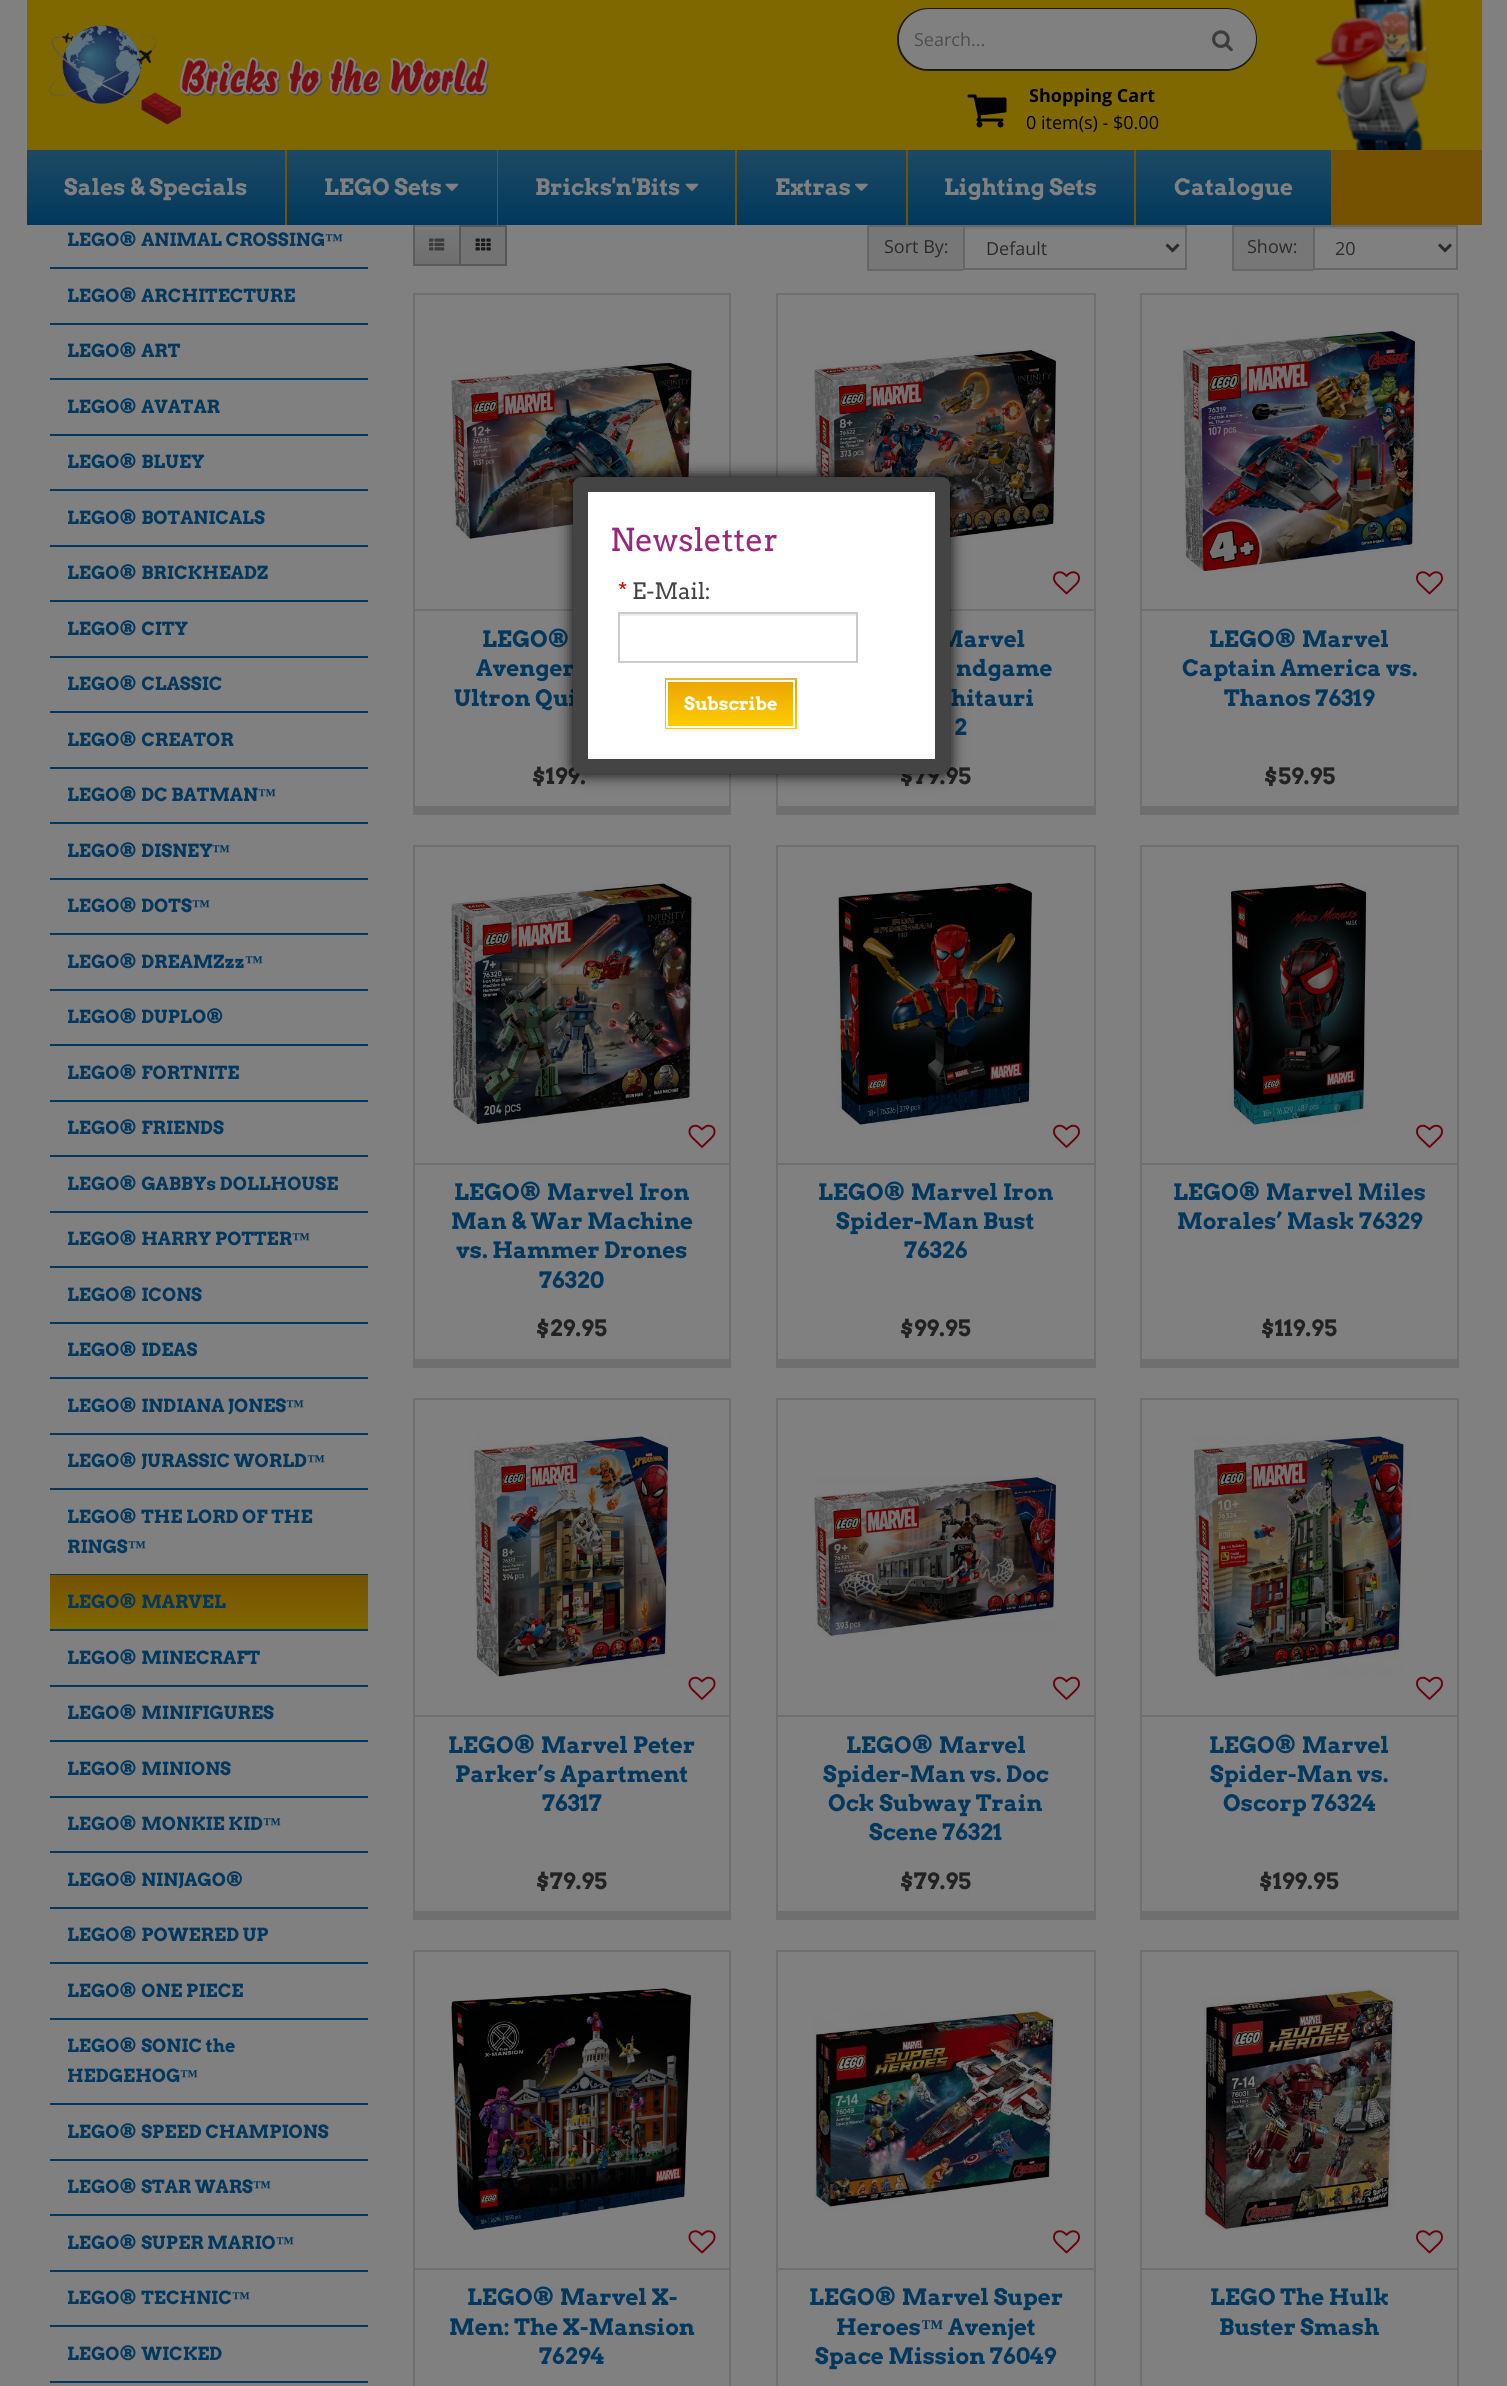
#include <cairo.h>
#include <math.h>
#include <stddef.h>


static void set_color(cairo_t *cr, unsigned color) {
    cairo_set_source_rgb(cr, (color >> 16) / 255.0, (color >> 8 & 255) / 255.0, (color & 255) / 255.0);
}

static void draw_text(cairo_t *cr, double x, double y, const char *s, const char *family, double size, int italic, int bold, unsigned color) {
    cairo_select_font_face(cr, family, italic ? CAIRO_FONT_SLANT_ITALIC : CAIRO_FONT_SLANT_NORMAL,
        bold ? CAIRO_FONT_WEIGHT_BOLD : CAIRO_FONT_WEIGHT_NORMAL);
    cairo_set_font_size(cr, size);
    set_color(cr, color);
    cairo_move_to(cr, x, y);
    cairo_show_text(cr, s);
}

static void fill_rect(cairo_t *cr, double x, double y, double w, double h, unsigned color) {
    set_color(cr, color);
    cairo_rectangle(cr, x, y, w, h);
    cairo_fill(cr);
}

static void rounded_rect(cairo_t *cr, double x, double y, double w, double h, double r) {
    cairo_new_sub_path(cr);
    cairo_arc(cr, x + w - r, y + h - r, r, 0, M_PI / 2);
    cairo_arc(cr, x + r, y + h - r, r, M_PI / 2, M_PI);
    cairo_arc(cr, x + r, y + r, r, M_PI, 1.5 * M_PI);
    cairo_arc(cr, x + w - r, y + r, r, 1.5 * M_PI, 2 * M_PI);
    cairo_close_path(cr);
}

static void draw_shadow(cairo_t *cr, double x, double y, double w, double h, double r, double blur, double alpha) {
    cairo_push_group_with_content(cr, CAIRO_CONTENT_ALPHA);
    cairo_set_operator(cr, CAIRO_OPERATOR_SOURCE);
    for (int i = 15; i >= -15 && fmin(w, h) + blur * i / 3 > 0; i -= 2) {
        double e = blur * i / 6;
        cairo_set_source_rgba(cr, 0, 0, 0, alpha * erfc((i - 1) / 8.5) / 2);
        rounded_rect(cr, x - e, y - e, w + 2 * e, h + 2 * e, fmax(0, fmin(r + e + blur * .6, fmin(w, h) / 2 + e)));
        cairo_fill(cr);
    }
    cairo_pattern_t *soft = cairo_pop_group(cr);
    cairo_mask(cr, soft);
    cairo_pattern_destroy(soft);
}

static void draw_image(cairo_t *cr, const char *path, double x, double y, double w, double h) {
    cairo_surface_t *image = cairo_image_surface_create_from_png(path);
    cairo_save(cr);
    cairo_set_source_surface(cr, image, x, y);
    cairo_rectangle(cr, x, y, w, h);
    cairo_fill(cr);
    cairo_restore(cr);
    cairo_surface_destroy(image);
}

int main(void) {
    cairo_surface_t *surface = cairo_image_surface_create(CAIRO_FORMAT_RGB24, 1507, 2386);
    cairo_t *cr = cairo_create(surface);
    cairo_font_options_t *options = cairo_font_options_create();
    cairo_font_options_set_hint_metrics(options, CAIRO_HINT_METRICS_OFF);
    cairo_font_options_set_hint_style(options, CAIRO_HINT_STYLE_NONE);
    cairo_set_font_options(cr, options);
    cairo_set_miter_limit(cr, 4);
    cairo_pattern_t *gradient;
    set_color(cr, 0x808080);
    cairo_paint(cr);
    fill_rect(cr, 27, 0, 1455, 150, 0x806800);
    draw_image(cr, "assets/img1.png", 49, 25, 440, 100);
    rounded_rect(cr, 898, 9, 358, 61, 30.5);
    set_color(cr, 0x1A1A1A);
    cairo_stroke(cr);
    set_color(cr, 0x808080);
    cairo_new_path(cr);
    cairo_move_to(cr, 929, 9);
    cairo_line_to(cr, 1199, 9);
    cairo_line_to(cr, 1199, 69);
    cairo_line_to(cr, 929, 69);
    cairo_curve_to(cr, 912.5, 69, 899, 55.5, 899, 39);
    cairo_curve_to(cr, 899, 22.5, 912.5, 9, 929, 9);
    cairo_close_path(cr);
    cairo_fill(cr);
    draw_text(cr, 914, 46, "Search...", "Open Sans", 18, 0, 0, 0x4D4D4D);
    set_color(cr, 0x808080);
    cairo_new_path(cr);
    cairo_move_to(cr, 1197, 9);
    cairo_line_to(cr, 1226, 9);
    cairo_curve_to(cr, 1242.5, 9, 1256, 22.5, 1256, 39);
    cairo_curve_to(cr, 1256, 55.5, 1242.5, 69, 1226, 69);
    cairo_line_to(cr, 1197, 69);
    cairo_close_path(cr);
    cairo_fill(cr);
    draw_image(cr, "assets/img2.png", 1212, 30, 21, 22);
    draw_image(cr, "assets/img3.png", 967, 94, 40, 34);
    draw_text(cr, 1029, 102, "Shopping Cart", "Open Sans", 18, 0, 1, 0x000000);
    draw_text(cr, 1026, 129, "0 item(s) - $0.00", "Open Sans", 18, 0, 0, 0x000000);
    draw_image(cr, "assets/img4.png", 1314, 0, 115, 150);
    fill_rect(cr, 285, 150, 1197, 75, 0x755102);
    gradient = cairo_pattern_create_linear(156, 150, 156, 225);
    cairo_pattern_add_color_stop_rgba(gradient, 0, 0.114, 0.29, 0.388, 1);
    cairo_pattern_add_color_stop_rgba(gradient, 1, 0.008, 0.22, 0.365, 1);
    cairo_set_source(cr, gradient);
    cairo_pattern_destroy(gradient);
    cairo_rectangle(cr, 27, 150, 258, 75);
    cairo_fill(cr);
    draw_text(cr, 64, 195, "Sales & Specials", "Arvo", 22.5, 0, 1, 0x808080);
    gradient = cairo_pattern_create_linear(392, 150, 392, 225);
    cairo_pattern_add_color_stop_rgba(gradient, 0, 0.114, 0.29, 0.388, 1);
    cairo_pattern_add_color_stop_rgba(gradient, 1, 0.008, 0.22, 0.365, 1);
    cairo_set_source(cr, gradient);
    cairo_pattern_destroy(gradient);
    cairo_rectangle(cr, 287, 150, 210, 75);
    cairo_fill(cr);
    draw_text(cr, 324, 195, "LEGO Sets", "Arvo", 22.5, 0, 1, 0x808080);
    draw_image(cr, "assets/img5.png", 445, 183, 14, 8);
    gradient = cairo_pattern_create_linear(617, 150, 617, 225);
    cairo_pattern_add_color_stop_rgba(gradient, 0, 0.114, 0.29, 0.388, 1);
    cairo_pattern_add_color_stop_rgba(gradient, 1, 0.008, 0.22, 0.365, 1);
    cairo_set_source(cr, gradient);
    cairo_pattern_destroy(gradient);
    cairo_rectangle(cr, 498, 150, 237, 75);
    cairo_fill(cr);
    draw_text(cr, 535, 195, "Bricks'n'Bits", "Arvo", 22.5, 0, 1, 0x808080);
    draw_image(cr, "assets/img5.png", 685, 183, 14, 8);
    gradient = cairo_pattern_create_linear(821, 150, 821, 225);
    cairo_pattern_add_color_stop_rgba(gradient, 0, 0.114, 0.29, 0.388, 1);
    cairo_pattern_add_color_stop_rgba(gradient, 1, 0.008, 0.22, 0.365, 1);
    cairo_set_source(cr, gradient);
    cairo_pattern_destroy(gradient);
    cairo_rectangle(cr, 737, 150, 169, 75);
    cairo_fill(cr);
    draw_text(cr, 775, 195, "Extras", "Arvo", 22.5, 0, 1, 0x808080);
    draw_image(cr, "assets/img6.png", 855, 183, 13, 8);
    gradient = cairo_pattern_create_linear(1021, 150, 1021, 225);
    cairo_pattern_add_color_stop_rgba(gradient, 0, 0.114, 0.29, 0.388, 1);
    cairo_pattern_add_color_stop_rgba(gradient, 1, 0.008, 0.22, 0.365, 1);
    cairo_set_source(cr, gradient);
    cairo_pattern_destroy(gradient);
    cairo_rectangle(cr, 908, 150, 226, 75);
    cairo_fill(cr);
    draw_text(cr, 944, 195, "Lighting Sets", "Arvo", 22.5, 0, 1, 0x808080);
    gradient = cairo_pattern_create_linear(1233, 150, 1233, 225);
    cairo_pattern_add_color_stop_rgba(gradient, 0, 0.114, 0.29, 0.388, 1);
    cairo_pattern_add_color_stop_rgba(gradient, 1, 0.008, 0.22, 0.365, 1);
    cairo_set_source(cr, gradient);
    cairo_pattern_destroy(gradient);
    cairo_rectangle(cr, 1136, 150, 195, 75);
    cairo_fill(cr);
    draw_text(cr, 1174, 195, "Catalogue", "Arvo", 22.5, 0, 1, 0x808080);
    fill_rect(cr, 50, 267, 318, 2, 0x02385D);
    draw_text(cr, 67, 246, "LEGO® ANIMAL CROSSING", "Arvo", 18, 0, 1, 0x02385D);
    draw_text(cr, 325, 246, "™", "Liberation Serif", 18, 0, 1, 0x02385D);
    fill_rect(cr, 50, 323, 318, 2, 0x02385D);
    draw_text(cr, 67, 302, "LEGO® ARCHITECTURE", "Arvo", 18, 0, 1, 0x02385D);
    fill_rect(cr, 50, 378, 318, 2, 0x02385D);
    draw_text(cr, 67, 357, "LEGO® ART", "Arvo", 18, 0, 1, 0x02385D);
    fill_rect(cr, 50, 434, 318, 2, 0x02385D);
    draw_text(cr, 67, 413, "LEGO® AVATAR", "Arvo", 18, 0, 1, 0x02385D);
    fill_rect(cr, 50, 489, 318, 2, 0x02385D);
    draw_text(cr, 67, 468, "LEGO® BLUEY", "Arvo", 18, 0, 1, 0x02385D);
    fill_rect(cr, 50, 545, 318, 2, 0x02385D);
    draw_text(cr, 67, 524, "LEGO® BOTANICALS", "Arvo", 18, 0, 1, 0x02385D);
    fill_rect(cr, 50, 600, 318, 2, 0x02385D);
    draw_text(cr, 67, 579, "LEGO® BRICKHEADZ", "Arvo", 18, 0, 1, 0x02385D);
    fill_rect(cr, 50, 656, 318, 2, 0x02385D);
    draw_text(cr, 67, 635, "LEGO® CITY", "Arvo", 18, 0, 1, 0x02385D);
    fill_rect(cr, 50, 711, 318, 2, 0x02385D);
    draw_text(cr, 67, 690, "LEGO® CLASSIC", "Arvo", 18, 0, 1, 0x02385D);
    fill_rect(cr, 50, 767, 318, 2, 0x02385D);
    draw_text(cr, 67, 746, "LEGO® CREATOR", "Arvo", 18, 0, 1, 0x02385D);
    fill_rect(cr, 50, 822, 318, 2, 0x02385D);
    draw_text(cr, 67, 801, "LEGO® DC BATMAN", "Arvo", 18, 0, 1, 0x02385D);
    draw_text(cr, 258, 801, "™", "Liberation Serif", 18, 0, 1, 0x02385D);
    fill_rect(cr, 50, 878, 318, 2, 0x02385D);
    draw_text(cr, 67, 857, "LEGO® DISNEY", "Arvo", 18, 0, 1, 0x02385D);
    draw_text(cr, 212, 857, "™", "Liberation Serif", 18, 0, 1, 0x02385D);
    fill_rect(cr, 50, 933, 318, 2, 0x02385D);
    draw_text(cr, 67, 912, "LEGO® DOTS", "Arvo", 18, 0, 1, 0x02385D);
    draw_text(cr, 192, 912, "™", "Liberation Serif", 18, 0, 1, 0x02385D);
    fill_rect(cr, 50, 989, 318, 2, 0x02385D);
    draw_text(cr, 67, 968, "LEGO® DREAMZzz", "Arvo", 18, 0, 1, 0x02385D);
    draw_text(cr, 245, 968, "™", "Liberation Serif", 18, 0, 1, 0x02385D);
    fill_rect(cr, 50, 1044, 318, 2, 0x02385D);
    draw_text(cr, 67, 1023, "LEGO® DUPLO®", "Arvo", 18, 0, 1, 0x02385D);
    fill_rect(cr, 50, 1100, 318, 2, 0x02385D);
    draw_text(cr, 67, 1079, "LEGO® FORTNITE", "Arvo", 18, 0, 1, 0x02385D);
    fill_rect(cr, 50, 1155, 318, 2, 0x02385D);
    draw_text(cr, 67, 1134, "LEGO® FRIENDS", "Arvo", 18, 0, 1, 0x02385D);
    fill_rect(cr, 50, 1211, 318, 2, 0x02385D);
    draw_text(cr, 67, 1190, "LEGO® GABBYs DOLLHOUSE", "Arvo", 18, 0, 1, 0x02385D);
    fill_rect(cr, 50, 1266, 318, 2, 0x02385D);
    draw_text(cr, 67, 1245, "LEGO® HARRY POTTER", "Arvo", 18, 0, 1, 0x02385D);
    draw_text(cr, 292, 1245, "™", "Liberation Serif", 18, 0, 1, 0x02385D);
    fill_rect(cr, 50, 1322, 318, 2, 0x02385D);
    draw_text(cr, 67, 1301, "LEGO® ICONS", "Arvo", 18, 0, 1, 0x02385D);
    fill_rect(cr, 50, 1377, 318, 2, 0x02385D);
    draw_text(cr, 67, 1356, "LEGO® IDEAS", "Arvo", 18, 0, 1, 0x02385D);
    fill_rect(cr, 50, 1433, 318, 2, 0x02385D);
    draw_text(cr, 67, 1412, "LEGO® INDIANA JONES", "Arvo", 18, 0, 1, 0x02385D);
    draw_text(cr, 286, 1412, "™", "Liberation Serif", 18, 0, 1, 0x02385D);
    fill_rect(cr, 50, 1488, 318, 2, 0x02385D);
    draw_text(cr, 67, 1467, "LEGO® JURASSIC WORLD", "Arvo", 18, 0, 1, 0x02385D);
    draw_text(cr, 307, 1467, "™", "Liberation Serif", 18, 0, 1, 0x02385D);
    fill_rect(cr, 50, 1574, 318, 1, 0x02385D);
    draw_text(cr, 67, 1523, "LEGO® THE LORD OF THE", "Arvo", 18, 0, 1, 0x02385D);
    draw_text(cr, 67, 1553, "RINGS", "Arvo", 18, 0, 1, 0x02385D);
    draw_text(cr, 128, 1553, "™", "Liberation Serif", 18, 0, 1, 0x02385D);
    gradient = cairo_pattern_create_linear(209, 1575, 209, 1629);
    cairo_pattern_add_color_stop_rgba(gradient, 0, 0.459, 0.318, 0.008, 1);
    cairo_pattern_add_color_stop_rgba(gradient, 1, 0.502, 0.408, 0, 1);
    cairo_set_source(cr, gradient);
    cairo_pattern_destroy(gradient);
    cairo_rectangle(cr, 50, 1575, 318, 54);
    cairo_fill(cr);
    fill_rect(cr, 50, 1629, 318, 2, 0x02385D);
    draw_text(cr, 67, 1608, "LEGO® MARVEL", "Arvo", 18, 0, 1, 0x02385D);
    fill_rect(cr, 50, 1685, 318, 2, 0x02385D);
    draw_text(cr, 67, 1664, "LEGO® MINECRAFT", "Arvo", 18, 0, 1, 0x02385D);
    fill_rect(cr, 50, 1740, 318, 2, 0x02385D);
    draw_text(cr, 67, 1719, "LEGO® MINIFIGURES", "Arvo", 18, 0, 1, 0x02385D);
    fill_rect(cr, 50, 1796, 318, 2, 0x02385D);
    draw_text(cr, 67, 1775, "LEGO® MINIONS", "Arvo", 18, 0, 1, 0x02385D);
    fill_rect(cr, 50, 1851, 318, 2, 0x02385D);
    draw_text(cr, 67, 1830, "LEGO® MONKIE KID", "Arvo", 18, 0, 1, 0x02385D);
    draw_text(cr, 263, 1830, "™", "Liberation Serif", 18, 0, 1, 0x02385D);
    fill_rect(cr, 50, 1907, 318, 2, 0x02385D);
    draw_text(cr, 67, 1886, "LEGO® NINJAGO®", "Arvo", 18, 0, 1, 0x02385D);
    fill_rect(cr, 50, 1962, 318, 2, 0x02385D);
    draw_text(cr, 67, 1941, "LEGO® POWERED UP", "Arvo", 18, 0, 1, 0x02385D);
    fill_rect(cr, 50, 2018, 318, 2, 0x02385D);
    draw_text(cr, 67, 1997, "LEGO® ONE PIECE", "Arvo", 18, 0, 1, 0x02385D);
    fill_rect(cr, 50, 2103, 318, 2, 0x02385D);
    draw_text(cr, 67, 2052, "LEGO® SONIC the", "Arvo", 18, 0, 1, 0x02385D);
    draw_text(cr, 67, 2082, "HEDGEHOG", "Arvo", 18, 0, 1, 0x02385D);
    draw_text(cr, 180, 2082, "™", "Liberation Serif", 18, 0, 1, 0x02385D);
    fill_rect(cr, 50, 2159, 318, 2, 0x02385D);
    draw_text(cr, 67, 2138, "LEGO® SPEED CHAMPIONS", "Arvo", 18, 0, 1, 0x02385D);
    fill_rect(cr, 50, 2214, 318, 2, 0x02385D);
    draw_text(cr, 67, 2193, "LEGO® STAR WARS", "Arvo", 18, 0, 1, 0x02385D);
    draw_text(cr, 253, 2193, "™", "Liberation Serif", 18, 0, 1, 0x02385D);
    fill_rect(cr, 50, 2270, 318, 2, 0x02385D);
    draw_text(cr, 67, 2249, "LEGO® SUPER MARIO", "Arvo", 18, 0, 1, 0x02385D);
    draw_text(cr, 276, 2249, "™", "Liberation Serif", 18, 0, 1, 0x02385D);
    fill_rect(cr, 50, 2325, 318, 2, 0x02385D);
    draw_text(cr, 67, 2304, "LEGO® TECHNIC", "Arvo", 18, 0, 1, 0x02385D);
    draw_text(cr, 232, 2304, "™", "Liberation Serif", 18, 0, 1, 0x02385D);
    fill_rect(cr, 50, 2381, 318, 2, 0x02385D);
    draw_text(cr, 67, 2360, "LEGO® WICKED", "Arvo", 18, 0, 1, 0x02385D);
    gradient = cairo_pattern_create_linear(437, 227, 437, 264);
    cairo_pattern_add_color_stop_rgba(gradient, 0, 0.467, 0.467, 0.467, 1);
    cairo_pattern_add_color_stop_rgba(gradient, 1, 0.435, 0.435, 0.435, 1);
    cairo_set_source(cr, gradient);
    cairo_pattern_destroy(gradient);
    cairo_rectangle(cr, 415, 229, 44, 35);
    cairo_fill(cr);
    fill_rect(cr, 414, 227, 45, 2, 0x797979);
    fill_rect(cr, 413, 225, 48, 2, 0x6F6F6F);
    fill_rect(cr, 413, 264, 48, 2, 0x5A5A5A);
    fill_rect(cr, 413, 225, 2, 41, 0x5C5C5C);
    draw_image(cr, "assets/img7.png", 429, 238, 16, 13);
    set_color(cr, 0x737373);
    cairo_rectangle(cr, 460, 226, 46, 39);
    cairo_fill_preserve(cr);
    set_color(cr, 0x575757);
    cairo_stroke(cr);
    draw_image(cr, "assets/img8.png", 475, 238, 16, 13);
    fill_rect(cr, 869, 227, 94, 42, 0x777777);
    fill_rect(cr, 867, 225, 96, 2, 0x666666);
    fill_rect(cr, 867, 269, 96, 2, 0x666666);
    fill_rect(cr, 867, 225, 2, 45, 0x666666);
    draw_text(cr, 884, 253, "Sort By:", "Open Sans", 18, 0, 0, 0x2B2B2B);
    fill_rect(cr, 965, 227, 220, 2, 0x767676);
    cairo_rectangle(cr, 964, 226, 222, 43);
    set_color(cr, 0x666666);
    cairo_stroke(cr);
    cairo_new_path(cr);
    cairo_move_to(cr, 1166.5, 244.5);
    cairo_line_to(cr, 1172.5, 250.5);
    cairo_line_to(cr, 1178.5, 244.5);
    set_color(cr, 0x2B2B2B);
    cairo_set_line_width(cr, 3);
    cairo_stroke(cr);
    draw_text(cr, 986, 255, "Default", "Open Sans", 18, 0, 0, 0x2B2B2B);
    fill_rect(cr, 1234, 227, 79, 42, 0x777777);
    fill_rect(cr, 1232, 225, 81, 2, 0x666666);
    fill_rect(cr, 1232, 269, 81, 2, 0x666666);
    fill_rect(cr, 1232, 225, 2, 45, 0x666666);
    draw_text(cr, 1247, 253, "Show:", "Open Sans", 18, 0, 0, 0x2B2B2B);
    fill_rect(cr, 1314, 227, 143, 2, 0x767676);
    cairo_rectangle(cr, 1314, 226, 143, 43);
    set_color(cr, 0x666666);
    cairo_set_line_width(cr, 2);
    cairo_stroke(cr);
    cairo_new_path(cr);
    cairo_move_to(cr, 1439, 244.5);
    cairo_line_to(cr, 1445, 250.5);
    cairo_line_to(cr, 1451, 244.5);
    set_color(cr, 0x2B2B2B);
    cairo_set_line_width(cr, 3);
    cairo_stroke(cr);
    draw_text(cr, 1335, 255, "20", "Open Sans", 18, 0, 0, 0x2B2B2B);
    fill_rect(cr, 413, 293, 318, 2, 0x6F6F6F);
    fill_rect(cr, 729, 293, 2, 513, 0x6F6F6F);
    fill_rect(cr, 415, 806, 316, 9, 0x6F6F6F);
    fill_rect(cr, 413, 293, 2, 522, 0x6F6F6F);
    fill_rect(cr, 414, 609, 159, 2, 0x6F6F6F);
    draw_image(cr, "assets/img9.png", 451, 360, 241, 179);
    draw_text(cr, 482, 647, "LEGO®", "Arvo", 22.5, 0, 1, 0x02385D);
    draw_text(cr, 476, 676, "Avenger", "Arvo", 22.5, 0, 1, 0x02385D);
    draw_text(cr, 454, 706, "Ultron Qui", "Arvo", 22.5, 0, 1, 0x02385D);
    draw_text(cr, 532, 784, "$199.", "Arvo", 22.5, 0, 1, 0x222222);
    fill_rect(cr, 776, 293, 319, 2, 0x6F6F6F);
    fill_rect(cr, 1094, 293, 2, 522, 0x6F6F6F);
    fill_rect(cr, 778, 806, 316, 9, 0x6F6F6F);
    fill_rect(cr, 776, 293, 2, 522, 0x6F6F6F);
    fill_rect(cr, 950, 609, 144, 2, 0x6F6F6F);
    draw_image(cr, "assets/img10.png", 814, 350, 242, 202);
    draw_image(cr, "assets/img11.png", 1053, 571, 27, 24);
    draw_text(cr, 938, 647, "Marvel", "Arvo", 22.5, 0, 1, 0x02385D);
    draw_text(cr, 956, 676, "ndgame", "Arvo", 22.5, 0, 1, 0x02385D);
    draw_text(cr, 951, 706, "hitauri", "Arvo", 22.5, 0, 1, 0x02385D);
    draw_text(cr, 954, 735, "2", "Arvo", 22.5, 0, 1, 0x02385D);
    draw_text(cr, 900, 784, "$79.95", "Arvo", 22.5, 0, 1, 0x222222);
    fill_rect(cr, 1140, 293, 318, 2, 0x6F6F6F);
    fill_rect(cr, 1457, 293, 2, 522, 0x6F6F6F);
    fill_rect(cr, 1142, 806, 315, 9, 0x6F6F6F);
    fill_rect(cr, 1140, 293, 2, 522, 0x6F6F6F);
    fill_rect(cr, 1142, 609, 315, 2, 0x6F6F6F);
    draw_image(cr, "assets/img12.png", 1182, 331, 237, 240);
    draw_image(cr, "assets/img11.png", 1416, 571, 27, 24);
    draw_text(cr, 1209, 647, "LEGO® Marvel", "Arvo", 22.5, 0, 1, 0x02385D);
    draw_text(cr, 1182, 676, "Captain America vs.", "Arvo", 22.5, 0, 1, 0x02385D);
    draw_text(cr, 1224, 706, "Thanos 76319", "Arvo", 22.5, 0, 1, 0x02385D);
    draw_text(cr, 1264, 784, "$59.95", "Arvo", 22.5, 0, 1, 0x222222);
    fill_rect(cr, 413, 845, 318, 2, 0x6F6F6F);
    fill_rect(cr, 729, 845, 2, 514, 0x6F6F6F);
    fill_rect(cr, 415, 1359, 316, 9, 0x6F6F6F);
    fill_rect(cr, 413, 845, 2, 523, 0x6F6F6F);
    fill_rect(cr, 414, 1163, 315, 2, 0x6F6F6F);
    draw_image(cr, "assets/img13.png", 451, 883, 241, 242);
    draw_image(cr, "assets/img14.png", 688, 1124, 28, 24);
    draw_text(cr, 454, 1200, "LEGO® Marvel Iron", "Arvo", 22.5, 0, 1, 0x02385D);
    draw_text(cr, 451, 1229, "Man & War Machine", "Arvo", 22.5, 0, 1, 0x02385D);
    draw_text(cr, 456, 1258, "vs. Hammer Drones", "Arvo", 22.5, 0, 1, 0x02385D);
    draw_text(cr, 539, 1288, "76320", "Arvo", 22.5, 0, 1, 0x02385D);
    draw_text(cr, 536, 1336, "$29.95", "Arvo", 22.5, 0, 1, 0x222222);
    fill_rect(cr, 776, 845, 319, 2, 0x6F6F6F);
    fill_rect(cr, 1094, 845, 2, 523, 0x6F6F6F);
    fill_rect(cr, 778, 1359, 316, 9, 0x6F6F6F);
    fill_rect(cr, 776, 845, 2, 523, 0x6F6F6F);
    fill_rect(cr, 777, 1163, 317, 2, 0x6F6F6F);
    draw_image(cr, "assets/img15.png", 834, 883, 198, 242);
    draw_image(cr, "assets/img16.png", 1053, 1124, 27, 24);
    draw_text(cr, 818, 1200, "LEGO® Marvel Iron", "Arvo", 22.5, 0, 1, 0x02385D);
    draw_text(cr, 836, 1229, "Spider-Man Bust", "Arvo", 22.5, 0, 1, 0x02385D);
    draw_text(cr, 904, 1258, "76326", "Arvo", 22.5, 0, 1, 0x02385D);
    draw_text(cr, 900, 1336, "$99.95", "Arvo", 22.5, 0, 1, 0x222222);
    fill_rect(cr, 1140, 845, 318, 2, 0x6F6F6F);
    fill_rect(cr, 1457, 845, 2, 523, 0x6F6F6F);
    fill_rect(cr, 1142, 1359, 315, 9, 0x6F6F6F);
    fill_rect(cr, 1140, 845, 2, 523, 0x6F6F6F);
    fill_rect(cr, 1142, 1163, 315, 2, 0x6F6F6F);
    draw_image(cr, "assets/img17.png", 1227, 883, 140, 242);
    draw_image(cr, "assets/img16.png", 1416, 1124, 27, 24);
    draw_text(cr, 1173, 1200, "LEGO® Marvel Miles", "Arvo", 22.5, 0, 1, 0x02385D);
    draw_text(cr, 1177, 1229, "Morales’ Mask 76329", "Arvo", 22.5, 0, 1, 0x02385D);
    draw_text(cr, 1261, 1336, "$119.95", "Arvo", 22.5, 0, 1, 0x222222);
    fill_rect(cr, 413, 1398, 318, 2, 0x6F6F6F);
    fill_rect(cr, 729, 1398, 2, 513, 0x6F6F6F);
    fill_rect(cr, 415, 1911, 316, 9, 0x6F6F6F);
    fill_rect(cr, 413, 1398, 2, 522, 0x6F6F6F);
    fill_rect(cr, 414, 1715, 315, 2, 0x6F6F6F);
    draw_image(cr, "assets/img18.png", 471, 1436, 201, 241);
    draw_image(cr, "assets/img14.png", 688, 1676, 28, 24);
    draw_text(cr, 448, 1753, "LEGO® Marvel Peter", "Arvo", 22.5, 0, 1, 0x02385D);
    draw_text(cr, 455, 1782, "Parker’s Apartment", "Arvo", 22.5, 0, 1, 0x02385D);
    draw_text(cr, 542, 1811, "76317", "Arvo", 22.5, 0, 1, 0x02385D);
    draw_text(cr, 536, 1889, "$79.95", "Arvo", 22.5, 0, 1, 0x222222);
    fill_rect(cr, 776, 1398, 319, 2, 0x6F6F6F);
    fill_rect(cr, 1094, 1398, 2, 522, 0x6F6F6F);
    fill_rect(cr, 778, 1911, 316, 9, 0x6F6F6F);
    fill_rect(cr, 776, 1398, 2, 522, 0x6F6F6F);
    fill_rect(cr, 777, 1715, 317, 2, 0x6F6F6F);
    draw_image(cr, "assets/img19.png", 814, 1475, 242, 163);
    draw_image(cr, "assets/img16.png", 1053, 1676, 27, 24);
    draw_text(cr, 846, 1753, "LEGO® Marvel", "Arvo", 22.5, 0, 1, 0x02385D);
    draw_text(cr, 823, 1782, "Spider-Man vs. Doc", "Arvo", 22.5, 0, 1, 0x02385D);
    draw_text(cr, 828, 1811, "Ock Subway Train", "Arvo", 22.5, 0, 1, 0x02385D);
    draw_text(cr, 869, 1840, "Scene 76321", "Arvo", 22.5, 0, 1, 0x02385D);
    draw_text(cr, 900, 1889, "$79.95", "Arvo", 22.5, 0, 1, 0x222222);
    fill_rect(cr, 1140, 1398, 318, 2, 0x6F6F6F);
    fill_rect(cr, 1457, 1398, 2, 522, 0x6F6F6F);
    fill_rect(cr, 1142, 1911, 315, 9, 0x6F6F6F);
    fill_rect(cr, 1140, 1398, 2, 522, 0x6F6F6F);
    fill_rect(cr, 1142, 1715, 315, 2, 0x6F6F6F);
    draw_image(cr, "assets/img20.png", 1193, 1436, 216, 241);
    draw_image(cr, "assets/img16.png", 1416, 1676, 27, 24);
    draw_text(cr, 1209, 1753, "LEGO® Marvel", "Arvo", 22.5, 0, 1, 0x02385D);
    draw_text(cr, 1210, 1782, "Spider-Man vs.", "Arvo", 22.5, 0, 1, 0x02385D);
    draw_text(cr, 1223, 1811, "Oscorp 76324", "Arvo", 22.5, 0, 1, 0x02385D);
    draw_text(cr, 1259, 1889, "$199.95", "Arvo", 22.5, 0, 1, 0x222222);
    fill_rect(cr, 413, 1950, 318, 2, 0x6F6F6F);
    fill_rect(cr, 729, 1950, 2, 436, 0x6F6F6F);
    fill_rect(cr, 413, 1950, 2, 436, 0x6F6F6F);
    fill_rect(cr, 414, 2268, 315, 2, 0x6F6F6F);
    draw_image(cr, "assets/img21.png", 451, 1988, 240, 242);
    draw_image(cr, "assets/img22.png", 688, 2230, 28, 24);
    draw_text(cr, 467, 2305, "LEGO® Marvel X-", "Arvo", 22.5, 0, 1, 0x02385D);
    draw_text(cr, 449, 2335, "Men: The X-Mansion", "Arvo", 22.5, 0, 1, 0x02385D);
    draw_text(cr, 539, 2364, "76294", "Arvo", 22.5, 0, 1, 0x02385D);
    fill_rect(cr, 776, 1950, 319, 2, 0x6F6F6F);
    fill_rect(cr, 1094, 1950, 2, 436, 0x6F6F6F);
    fill_rect(cr, 776, 1950, 2, 436, 0x6F6F6F);
    fill_rect(cr, 777, 2268, 317, 2, 0x6F6F6F);
    draw_image(cr, "assets/img23.png", 814, 2008, 242, 202);
    draw_image(cr, "assets/img11.png", 1053, 2230, 27, 24);
    draw_text(cr, 809, 2305, "LEGO® Marvel Super", "Arvo", 22.5, 0, 1, 0x02385D);
    draw_text(cr, 836, 2335, "Heroes", "Arvo", 22.5, 0, 1, 0x02385D);
    draw_text(cr, 921, 2335, "™", "Liberation Serif", 22.5, 0, 1, 0x02385D);
    draw_text(cr, 948, 2335, "Avenjet", "Arvo", 22.5, 0, 1, 0x02385D);
    draw_text(cr, 815, 2364, "Space Mission 76049", "Arvo", 22.5, 0, 1, 0x02385D);
    fill_rect(cr, 1140, 1950, 318, 2, 0x6F6F6F);
    fill_rect(cr, 1457, 1950, 2, 436, 0x6F6F6F);
    fill_rect(cr, 1140, 1950, 2, 436, 0x6F6F6F);
    fill_rect(cr, 1142, 2268, 315, 2, 0x6F6F6F);
    draw_image(cr, "assets/img24.png", 1201, 1988, 195, 242);
    draw_image(cr, "assets/img11.png", 1416, 2230, 27, 24);
    draw_text(cr, 1210, 2305, "LEGO The Hulk", "Arvo", 22.5, 0, 1, 0x02385D);
    draw_text(cr, 1219, 2335, "Buster Smash", "Arvo", 22.5, 0, 1, 0x02385D);
    set_color(cr, 0x000000);
    draw_shadow(cr, 573, 477, 377, 297, 8, 7.5, 1);
    set_color(cr, 0xFFFFFF);
    rounded_rect(cr, 580.5, 484.5, 362, 282, 0.5);
    cairo_fill_preserve(cr);
    set_color(cr, 0x444444);
    cairo_set_line_width(cr, 15);
    cairo_stroke(cr);
    draw_text(cr, 610, 551, "Newsletter", "Arvo", 31.5, 0, 0, 0x9C267A);
    draw_text(cr, 618, 599, "*", "Arvo", 22.5, 0, 0, 0xFF0000);
    draw_text(cr, 632, 599, "E-Mail:", "Arvo", 22.5, 0, 0, 0x444444);
    fill_rect(cr, 620, 614, 237, 2, 0xECECEC);
    cairo_rectangle(cr, 619, 613, 238, 49);
    set_color(cr, 0xCCCCCC);
    cairo_set_line_width(cr, 2);
    cairo_stroke(cr);
    set_color(cr, 0x000000);
    draw_shadow(cr, 665, 680, 132, 51, 0, 1.5, 0.05);
    gradient = cairo_pattern_create_linear(731, 678, 731, 729);
    cairo_pattern_add_color_stop_rgba(gradient, 0, 0.914, 0.635, 0.012, 1);
    cairo_pattern_add_color_stop_rgba(gradient, 1, 1, 0.812, 0, 1);
    cairo_set_source(cr, gradient);
    cairo_pattern_destroy(gradient);
    cairo_rectangle(cr, 665, 680, 132, 49);
    cairo_fill(cr);
    fill_rect(cr, 665, 678, 132, 2, 0xEEB535);
    cairo_rectangle(cr, 667, 681, 127, 46);
    set_color(cr, 0xFFFFFF);
    cairo_stroke(cr);
    draw_text(cr, 684, 710, "Subscribe", "Arvo", 18, 0, 1, 0xFFFFFF);
    cairo_surface_write_to_png(surface, "output.png");
    cairo_font_options_destroy(options);
    cairo_destroy(cr);
    cairo_surface_destroy(surface);
    return 0;
}
